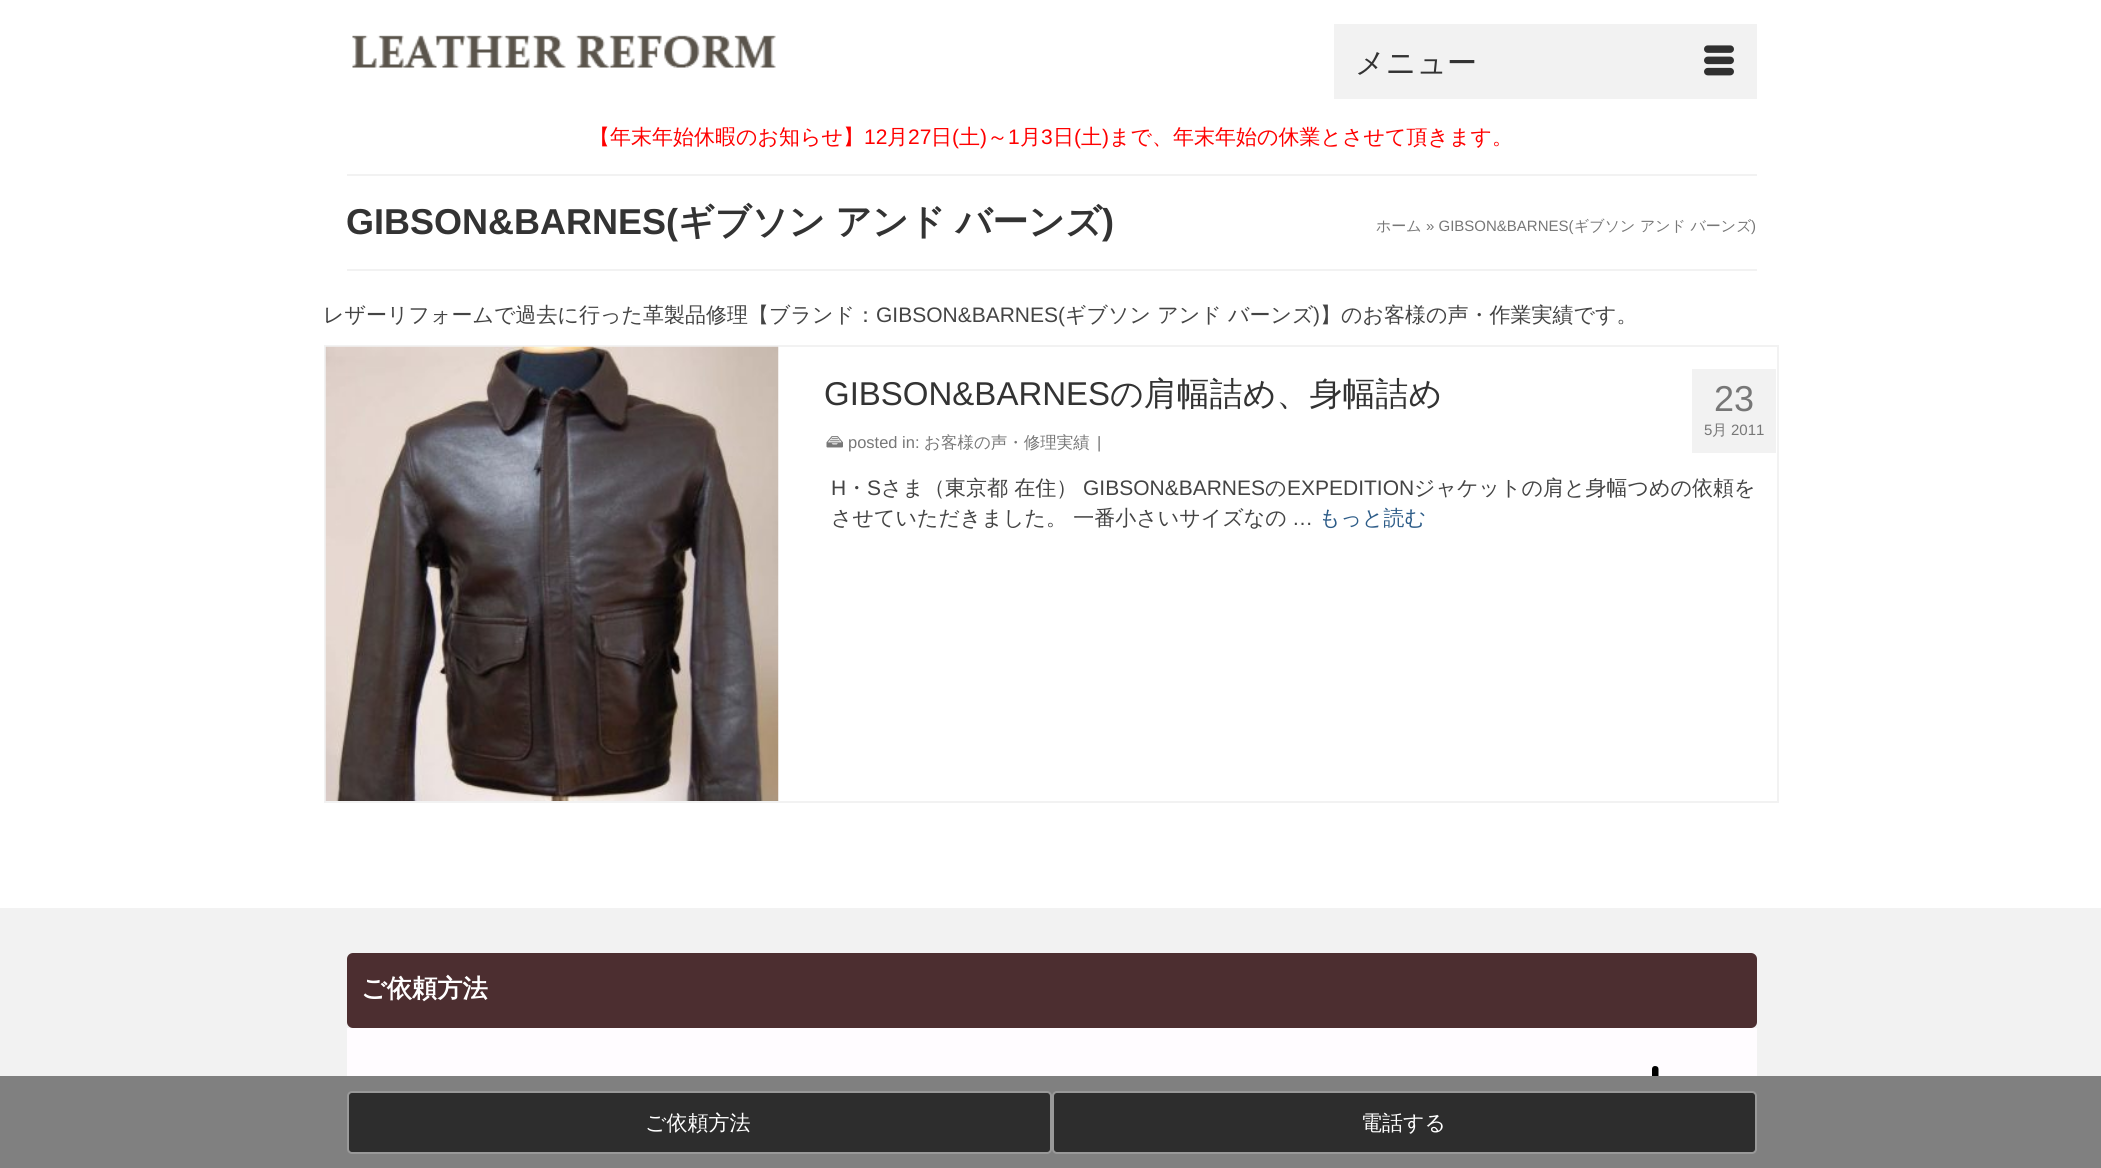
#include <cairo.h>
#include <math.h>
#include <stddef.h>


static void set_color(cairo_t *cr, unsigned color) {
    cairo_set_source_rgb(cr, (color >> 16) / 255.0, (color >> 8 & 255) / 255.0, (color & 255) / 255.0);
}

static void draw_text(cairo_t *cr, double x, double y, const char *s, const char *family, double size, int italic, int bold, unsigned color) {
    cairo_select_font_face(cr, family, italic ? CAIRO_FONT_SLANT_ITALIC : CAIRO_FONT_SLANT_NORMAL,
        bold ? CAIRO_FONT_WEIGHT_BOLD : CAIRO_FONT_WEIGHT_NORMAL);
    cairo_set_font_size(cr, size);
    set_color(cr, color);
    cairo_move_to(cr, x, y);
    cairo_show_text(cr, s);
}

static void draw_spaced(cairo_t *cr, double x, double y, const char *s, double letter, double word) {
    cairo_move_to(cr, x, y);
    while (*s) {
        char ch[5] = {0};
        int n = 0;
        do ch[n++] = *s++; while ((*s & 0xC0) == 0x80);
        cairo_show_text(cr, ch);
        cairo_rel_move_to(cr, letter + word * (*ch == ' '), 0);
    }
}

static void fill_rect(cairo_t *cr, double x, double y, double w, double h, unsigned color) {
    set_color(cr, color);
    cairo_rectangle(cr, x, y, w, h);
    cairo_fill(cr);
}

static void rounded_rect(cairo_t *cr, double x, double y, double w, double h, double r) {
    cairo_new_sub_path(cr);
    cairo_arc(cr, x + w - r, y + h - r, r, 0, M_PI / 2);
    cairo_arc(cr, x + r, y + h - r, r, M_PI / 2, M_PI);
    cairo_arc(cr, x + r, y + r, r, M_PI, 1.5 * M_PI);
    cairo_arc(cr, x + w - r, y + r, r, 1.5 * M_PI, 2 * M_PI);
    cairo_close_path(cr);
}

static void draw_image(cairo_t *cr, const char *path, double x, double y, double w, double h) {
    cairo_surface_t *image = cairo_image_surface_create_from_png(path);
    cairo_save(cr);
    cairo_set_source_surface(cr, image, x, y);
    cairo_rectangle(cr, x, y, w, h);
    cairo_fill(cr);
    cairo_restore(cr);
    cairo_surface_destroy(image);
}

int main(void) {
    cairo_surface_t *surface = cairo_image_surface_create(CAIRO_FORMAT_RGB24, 2101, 1168);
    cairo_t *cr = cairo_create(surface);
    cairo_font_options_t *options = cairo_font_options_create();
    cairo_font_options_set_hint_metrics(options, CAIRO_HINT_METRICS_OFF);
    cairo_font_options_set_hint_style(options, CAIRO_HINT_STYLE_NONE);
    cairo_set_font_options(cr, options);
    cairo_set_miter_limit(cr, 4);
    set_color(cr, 0xFFFFFF);
    cairo_paint(cr);
    draw_image(cr, "assets/img1.png", 352, 35, 424, 33);
    fill_rect(cr, 1334, 24, 423, 75, 0xF2F2F2);
    draw_text(cr, 1355, 73, "メニュー", "WenQuanYi Zen Hei Medium", 30, 0, 0, 0x333333);
    draw_image(cr, "assets/img2.png", 1704, 45, 30, 31);
    draw_text(cr, 589, 144, "【年末年始休暇のお知らせ】", "WenQuanYi Zen Hei Medium", 21, 0, 0, 0xFF0000);
    draw_text(cr, 864, 144, "12", "Liberation Sans", 21, 0, 0, 0xFF0000);
    draw_text(cr, 887, 144, "月", "WenQuanYi Zen Hei Medium", 21, 0, 0, 0xFF0000);
    draw_text(cr, 908, 144, "27", "Liberation Sans", 21, 0, 0, 0xFF0000);
    draw_text(cr, 931, 144, "日", "WenQuanYi Zen Hei Medium", 21, 0, 0, 0xFF0000);
    draw_text(cr, 952, 144, "(", "Liberation Sans", 21, 0, 0, 0xFF0000);
    draw_text(cr, 959, 144, "土", "WenQuanYi Zen Hei Medium", 21, 0, 0, 0xFF0000);
    draw_text(cr, 980, 144, ")", "Liberation Sans", 21, 0, 0, 0xFF0000);
    draw_text(cr, 987, 144, "～", "WenQuanYi Zen Hei Medium", 21, 0, 0, 0xFF0000);
    draw_text(cr, 1008, 144, "1", "Liberation Sans", 21, 0, 0, 0xFF0000);
    draw_text(cr, 1020, 144, "月", "WenQuanYi Zen Hei Medium", 21, 0, 0, 0xFF0000);
    draw_text(cr, 1041, 144, "3", "Liberation Sans", 21, 0, 0, 0xFF0000);
    draw_text(cr, 1053, 144, "日", "WenQuanYi Zen Hei Medium", 21, 0, 0, 0xFF0000);
    draw_text(cr, 1074, 144, "(", "Liberation Sans", 21, 0, 0, 0xFF0000);
    draw_text(cr, 1081, 144, "土", "WenQuanYi Zen Hei Medium", 21, 0, 0, 0xFF0000);
    draw_text(cr, 1102, 144, ")", "Liberation Sans", 21, 0, 0, 0xFF0000);
    draw_text(cr, 1109, 144, "まで、年末年始の休業とさせて頂きます。", "WenQuanYi Zen Hei Medium", 21, 0, 0, 0xFF0000);
    fill_rect(cr, 347, 174, 1410, 2, 0xF2F2F2);
    fill_rect(cr, 347, 269, 1410, 2, 0xF2F2F2);
    draw_text(cr, 346, 234, "GIBSON&BARNES(", "Liberation Sans", 36, 0, 1, 0x333333);
    cairo_select_font_face(cr, "WenQuanYi Zen Hei", CAIRO_FONT_SLANT_NORMAL, CAIRO_FONT_WEIGHT_BOLD);
    draw_spaced(cr, 678, 234, "ギブソン アンド バーンズ", 0, -1);
    draw_text(cr, 1102, 234, ")", "Liberation Sans", 36, 0, 1, 0x333333);
    draw_text(cr, 1376, 231, "ホーム", "WenQuanYi Zen Hei Medium", 15, 0, 0, 0x777777);
    draw_text(cr, 1426, 231, "» GIBSON&BARNES(", "Liberation Sans", 15, 0, 0, 0x777777);
    draw_text(cr, 1574, 231, "ギブソン アンド バーンズ", "WenQuanYi Zen Hei Medium", 15, 0, 0, 0x777777);
    draw_text(cr, 1751, 231, ")", "Liberation Sans", 15, 0, 0, 0x777777);
    draw_text(cr, 323, 322, "レザーリフォームで過去に行った革製品修理【ブランド：", "WenQuanYi Zen Hei Medium", 21, 0, 0, 0x444444);
    draw_text(cr, 876, 322, "GIBSON&BARNES(", "Liberation Sans", 21, 0, 0, 0x444444);
    draw_text(cr, 1065, 322, "ギブソン アンド バーンズ", "WenQuanYi Zen Hei Medium", 21, 0, 0, 0x444444);
    draw_text(cr, 1313, 322, ")", "Liberation Sans", 21, 0, 0, 0x444444);
    draw_text(cr, 1320, 322, "】のお客様の声・作業実績です。", "WenQuanYi Zen Hei Medium", 21, 0, 0, 0x444444);
    cairo_rectangle(cr, 325, 346, 1453, 456);
    set_color(cr, 0xF2F2F2);
    cairo_stroke(cr);
    draw_image(cr, "assets/img3.png", 325, 346, 454, 455);
    draw_text(cr, 824, 405, "GIBSON&BARNES", "Liberation Sans", 33, 0, 0, 0x333333);
    draw_text(cr, 1110, 405, "の肩幅詰め、身幅詰め", "WenQuanYi Zen Hei Medium", 33, 0, 0, 0x333333);
    draw_image(cr, "assets/img4.png", 826, 436, 17, 12);
    draw_text(cr, 848, 448, "posted in:", "Liberation Sans", 16.5, 0, 0, 0x777777);
    draw_text(cr, 924, 448, "お客様の声・修理実績", "WenQuanYi Zen Hei Medium", 16.5, 0, 0, 0x777777);
    draw_text(cr, 1097, 448, "|", "Liberation Sans", 16.5, 0, 0, 0x777777);
    fill_rect(cr, 1692, 369, 84, 84, 0xF2F2F2);
    draw_text(cr, 1714, 411, "23", "Liberation Sans", 36, 0, 0, 0x777777);
    draw_text(cr, 1704, 435, "5", "Liberation Sans", 15, 0, 0, 0x777777);
    draw_text(cr, 1712, 435, "月", "WenQuanYi Zen Hei Medium", 15, 0, 0, 0x777777);
    draw_text(cr, 1731, 435, "2011", "Liberation Sans", 15, 0, 0, 0x777777);
    draw_text(cr, 831, 495, "H", "Liberation Sans", 21, 0, 0, 0x444444);
    draw_text(cr, 846, 495, "・", "WenQuanYi Zen Hei Medium", 21, 0, 0, 0x444444);
    draw_text(cr, 867, 495, "S", "Liberation Sans", 21, 0, 0, 0x444444);
    draw_text(cr, 881, 495, "さま（東京都 在住）", "WenQuanYi Zen Hei Medium", 21, 0, 0, 0x444444);
    draw_text(cr, 1083, 495, "GIBSON&BARNES", "Liberation Sans", 21, 0, 0, 0x444444);
    draw_text(cr, 1265, 495, "の", "WenQuanYi Zen Hei Medium", 21, 0, 0, 0x444444);
    draw_text(cr, 1287, 495, "EXPEDITION", "Liberation Sans", 21, 0, 0, 0x444444);
    draw_text(cr, 1414, 495, "ジャケットの肩と身幅つめの依頼を", "WenQuanYi Zen Hei Medium", 21, 0, 0, 0x444444);
    draw_text(cr, 831, 525, "させていただきました。 一番小さいサイズなの", "WenQuanYi Zen Hei Medium", 21, 0, 0, 0x444444);
    draw_text(cr, 1292, 525, "…", "Liberation Sans", 21, 0, 0, 0x444444);
    draw_text(cr, 1319, 525, "もっと読む", "WenQuanYi Zen Hei Medium", 21, 0, 0, 0x2D5C88);
    fill_rect(cr, 0, 908, 2101, 168, 0xF2F2F2);
    set_color(cr, 0x4C2E30);
    rounded_rect(cr, 347, 953, 1410, 75, 6);
    cairo_fill(cr);
    draw_text(cr, 361, 997, "ご依頼方法", "WenQuanYi Zen Hei", 25.25, 0, 1, 0xFFFFFF);
    fill_rect(cr, 347, 1028, 1410, 48, 0xFFFCFF);
    set_color(cr, 0x000000);
    cairo_new_path(cr);
    cairo_move_to(cr, 1658.5, 1069);
    cairo_line_to(cr, 1658.5, 1090);
    cairo_curve_to(cr, 1658.5, 1091.5, 1657, 1093, 1655, 1093);
    cairo_curve_to(cr, 1653.5, 1093, 1652, 1091.5, 1652, 1090);
    cairo_line_to(cr, 1652, 1069);
    cairo_curve_to(cr, 1652, 1067, 1653.5, 1066, 1655, 1066);
    cairo_curve_to(cr, 1657, 1066, 1658.5, 1067, 1658.5, 1069);
    cairo_close_path(cr);
    cairo_fill(cr);
    fill_rect(cr, 0, 1076, 2101, 92, 0x808080);
    set_color(cr, 0x2D2D2D);
    rounded_rect(cr, 348, 1092, 703, 61, 4);
    cairo_fill_preserve(cr);
    set_color(cr, 0x999999);
    cairo_stroke(cr);
    draw_text(cr, 645, 1130, "ご依頼方法", "WenQuanYi Zen Hei Medium", 21, 0, 0, 0xFFFFFF);
    set_color(cr, 0x2D2D2D);
    rounded_rect(cr, 1053, 1092, 703, 61, 4);
    cairo_fill_preserve(cr);
    set_color(cr, 0x999999);
    cairo_stroke(cr);
    draw_text(cr, 1361, 1130, "電話する", "WenQuanYi Zen Hei Medium", 21, 0, 0, 0xFFFFFF);
    cairo_surface_write_to_png(surface, "output.png");
    cairo_font_options_destroy(options);
    cairo_destroy(cr);
    cairo_surface_destroy(surface);
    return 0;
}
